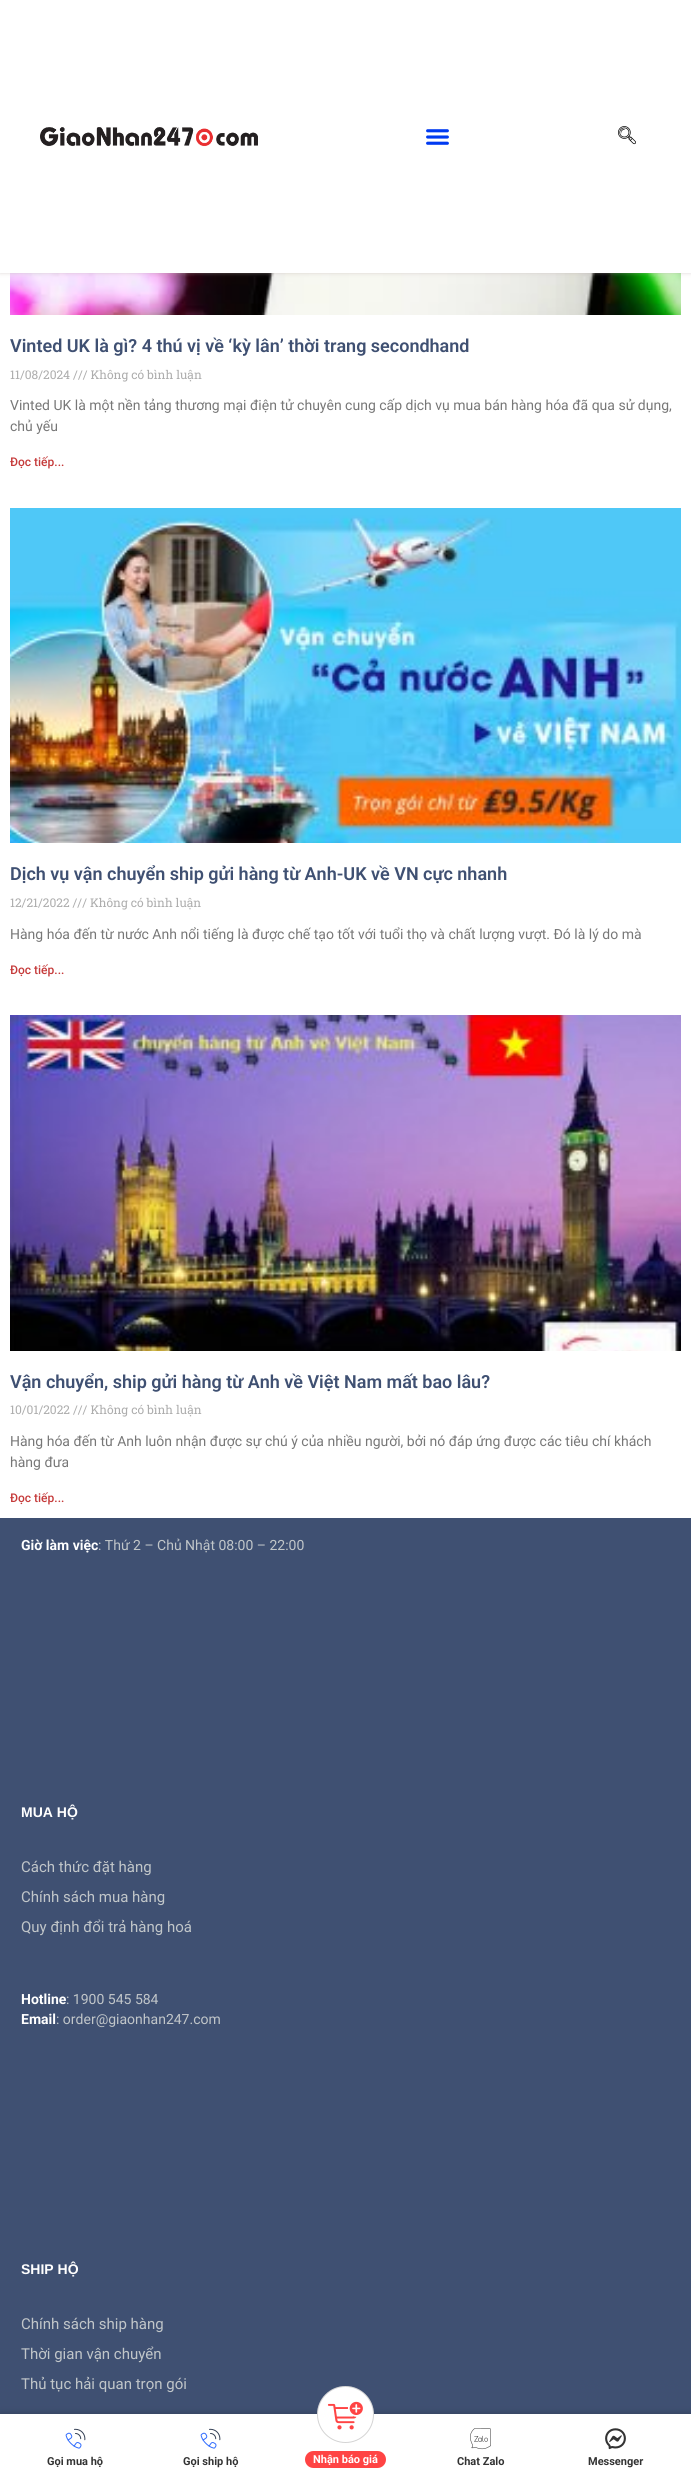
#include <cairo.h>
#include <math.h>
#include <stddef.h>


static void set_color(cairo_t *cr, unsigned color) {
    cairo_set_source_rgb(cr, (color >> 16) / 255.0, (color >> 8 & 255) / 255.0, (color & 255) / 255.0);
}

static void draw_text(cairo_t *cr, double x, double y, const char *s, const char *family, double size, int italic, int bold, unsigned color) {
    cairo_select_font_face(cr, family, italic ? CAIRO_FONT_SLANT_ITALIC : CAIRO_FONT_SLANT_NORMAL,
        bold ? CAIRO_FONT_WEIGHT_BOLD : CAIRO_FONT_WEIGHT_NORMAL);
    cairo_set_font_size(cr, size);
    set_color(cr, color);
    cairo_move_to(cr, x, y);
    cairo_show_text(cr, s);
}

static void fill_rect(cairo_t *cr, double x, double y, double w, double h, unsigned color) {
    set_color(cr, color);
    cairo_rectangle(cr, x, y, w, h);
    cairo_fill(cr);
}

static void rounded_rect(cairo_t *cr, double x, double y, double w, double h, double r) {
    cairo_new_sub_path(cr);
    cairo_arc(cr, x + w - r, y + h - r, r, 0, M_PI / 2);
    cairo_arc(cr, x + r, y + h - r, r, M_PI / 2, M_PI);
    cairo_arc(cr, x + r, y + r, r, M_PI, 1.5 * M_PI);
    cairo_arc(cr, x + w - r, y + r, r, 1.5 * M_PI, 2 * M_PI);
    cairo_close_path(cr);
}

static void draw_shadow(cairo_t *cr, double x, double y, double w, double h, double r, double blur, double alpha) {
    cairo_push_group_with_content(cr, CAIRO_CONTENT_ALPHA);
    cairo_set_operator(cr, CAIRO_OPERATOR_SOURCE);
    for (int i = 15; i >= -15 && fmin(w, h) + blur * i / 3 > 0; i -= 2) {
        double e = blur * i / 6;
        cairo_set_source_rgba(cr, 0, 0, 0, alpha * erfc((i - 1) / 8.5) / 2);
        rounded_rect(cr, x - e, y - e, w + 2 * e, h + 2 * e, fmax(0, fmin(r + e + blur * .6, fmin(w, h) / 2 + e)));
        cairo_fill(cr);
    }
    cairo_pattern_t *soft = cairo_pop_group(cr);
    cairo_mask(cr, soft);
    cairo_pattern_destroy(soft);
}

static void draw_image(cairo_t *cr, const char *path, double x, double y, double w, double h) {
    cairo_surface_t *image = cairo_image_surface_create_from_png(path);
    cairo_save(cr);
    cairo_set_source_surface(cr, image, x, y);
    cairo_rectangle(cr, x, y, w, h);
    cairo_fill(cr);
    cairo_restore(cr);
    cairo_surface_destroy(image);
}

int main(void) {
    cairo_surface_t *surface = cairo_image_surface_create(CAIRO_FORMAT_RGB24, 691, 2479);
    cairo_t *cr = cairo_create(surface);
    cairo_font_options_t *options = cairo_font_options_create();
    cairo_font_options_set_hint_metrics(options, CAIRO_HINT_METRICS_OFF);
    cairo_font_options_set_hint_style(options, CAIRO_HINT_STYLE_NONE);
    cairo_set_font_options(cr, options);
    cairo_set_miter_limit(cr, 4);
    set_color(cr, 0xFFFFFF);
    cairo_paint(cr);
    draw_image(cr, "assets/img4.png", 10, 273, 671, 42);
    set_color(cr, 0xBBADAD);
    draw_shadow(cr, 0, 0, 691, 273, 0, 2, 0.5);
    fill_rect(cr, 0, 0, 691, 273, 0xFFFFFF);
    draw_image(cr, "assets/img1.png", 40, 127, 218, 20);
    draw_image(cr, "assets/img2.png", 426, 129, 23, 16);
    draw_image(cr, "assets/img3.png", 618, 126, 18, 19);
    draw_text(cr, 10, 352, "Vinted UK là gì? 4 thú vị về ‘kỳ lân’ thời trang secondhand", "Roboto SemiBold", 18, 0, 0, 0x3F5072);
    draw_text(cr, 10, 379, "11/08/2024 /// Không có bình luận", "Roboto Slab", 12, 0, 0, 0xADADAD);
    draw_text(cr, 10, 410, "Vinted UK là một nền tảng thương mại điện tử chuyên cung cấp dịch vụ mua bán hàng hóa đã qua sử dụng,", "Roboto", 14, 0, 0, 0x777777);
    draw_text(cr, 10, 431, "chủ yếu", "Roboto", 14, 0, 0, 0x777777);
    draw_text(cr, 10, 466, "Đọc tiếp...", "Roboto Medium", 12, 0, 0, 0xC53A3A);
    draw_image(cr, "assets/img5.png", 10, 508, 671, 335);
    draw_text(cr, 10, 880, "Dịch vụ vận chuyển ship gửi hàng từ Anh-UK về VN cực nhanh", "Roboto SemiBold", 18, 0, 0, 0x3F5072);
    draw_text(cr, 10, 907, "12/21/2022 /// Không có bình luận", "Roboto Slab", 12, 0, 0, 0xADADAD);
    draw_text(cr, 10, 939, "Hàng hóa đến từ nước Anh nổi tiếng là được chế tạo tốt với tuổi thọ và chất lượng vượt. Đó là lý do mà", "Roboto", 14, 0, 0, 0x777777);
    draw_text(cr, 10, 974, "Đọc tiếp...", "Roboto Medium", 12, 0, 0, 0xC53A3A);
    draw_image(cr, "assets/img6.png", 10, 1015, 671, 336);
    draw_text(cr, 10, 1388, "Vận chuyển, ship gửi hàng từ Anh về Việt Nam mất bao lâu?", "Roboto SemiBold", 18, 0, 0, 0x3F5072);
    draw_text(cr, 10, 1414, "10/01/2022 /// Không có bình luận", "Roboto Slab", 12, 0, 0, 0xADADAD);
    draw_text(cr, 10, 1446, "Hàng hóa đến từ Anh luôn nhận được sự chú ý của nhiều người, bởi nó đáp ứng được các tiêu chí khách", "Roboto", 14, 0, 0, 0x777777);
    draw_text(cr, 10, 1467, "hàng đưa", "Roboto", 14, 0, 0, 0x777777);
    draw_text(cr, 10, 1502, "Đọc tiếp...", "Roboto Medium", 12, 0, 0, 0xC53A3A);
    fill_rect(cr, 0, 1518, 691, 896, 0x3F5072);
    draw_text(cr, 21, 1550, "Giờ làm việc", "Roboto", 14, 0, 1, 0xFFFFFF);
    draw_text(cr, 98, 1550, ": Thứ 2 – Chủ Nhật 08:00 – 22:00", "Roboto", 14, 0, 0, 0xC1C6C9);
    draw_text(cr, 21, 1817, "MUA HỘ", "Liberation Sans", 14, 0, 1, 0xFFFFFF);
    draw_text(cr, 21, 1872, "Cách thức đặt hàng", "Roboto", 15, 0, 0, 0xC1C6C9);
    draw_text(cr, 21, 1902, "Chính sách mua hàng", "Roboto", 15, 0, 0, 0xC1C6C9);
    draw_text(cr, 21, 1932, "Quy định đổi trả hàng hoá", "Roboto", 15, 0, 0, 0xC1C6C9);
    draw_text(cr, 21, 2004, "Hotline", "Roboto", 14, 0, 1, 0xFFFFFF);
    draw_text(cr, 66, 2004, ": 1900 545 584", "Roboto", 14, 0, 0, 0xC1C6C9);
    draw_text(cr, 21, 2024, "Email", "Roboto", 14, 0, 1, 0xFFFFFF);
    draw_text(cr, 56, 2024, ": order@giaonhan247.com", "Roboto", 14, 0, 0, 0xC1C6C9);
    draw_text(cr, 21, 2274, "SHIP HỘ", "Liberation Sans", 14, 0, 1, 0xFFFFFF);
    draw_text(cr, 21, 2329, "Chính sách ship hàng", "Roboto", 15, 0, 0, 0xC1C6C9);
    draw_text(cr, 21, 2359, "Thời gian vận chuyển", "Roboto", 15, 0, 0, 0xC1C6C9);
    draw_text(cr, 21, 2389, "Thủ tục hải quan trọn gói", "Roboto", 15, 0, 0, 0xC1C6C9);
    set_color(cr, 0x000000);
    draw_shadow(cr, 0, 2413, 691, 65, 0, 3.5, 0.19);
    fill_rect(cr, 0, 2414, 691, 65, 0xFFFFFF);
    draw_image(cr, "assets/img7.png", 65, 2428, 21, 21);
    draw_text(cr, 47, 2465, "Gọi mua hộ", "Roboto", 11, 0, 1, 0x333333);
    draw_image(cr, "assets/img7.png", 200, 2428, 21, 21);
    draw_text(cr, 183, 2465, "Gọi ship hộ", "Roboto", 11, 0, 1, 0x333333);
    set_color(cr, 0xFFFFFF);
    cairo_new_path(cr);
    cairo_arc(cr, 345.5, 2414.5, 28.5, 0, 2 * M_PI);
    cairo_fill(cr);
    cairo_arc(cr, 345.5, 2414.5, 28, 0, 2 * M_PI);
    cairo_set_source_rgba(cr, 0, 0, 0, 0.17);
    cairo_set_line_width(cr, 1);
    cairo_stroke(cr);
    draw_image(cr, "assets/img8.png", 327, 2401, 36, 29);
    set_color(cr, 0xFF4444);
    rounded_rect(cr, 305, 2451, 81, 17, 8.5);
    cairo_fill(cr);
    draw_text(cr, 313, 2463, "Nhận báo giá", "Roboto", 11, 0, 1, 0xFFFFFF);
    draw_image(cr, "assets/img9.png", 470, 2428, 21, 22);
    draw_text(cr, 457, 2465, "Chat Zalo", "Roboto", 11, 0, 1, 0x333333);
    draw_image(cr, "assets/img10.png", 605, 2428, 21, 22);
    draw_text(cr, 588, 2465, "Messenger", "Roboto", 11, 0, 1, 0x333333);
    cairo_surface_write_to_png(surface, "output.png");
    cairo_font_options_destroy(options);
    cairo_destroy(cr);
    cairo_surface_destroy(surface);
    return 0;
}
